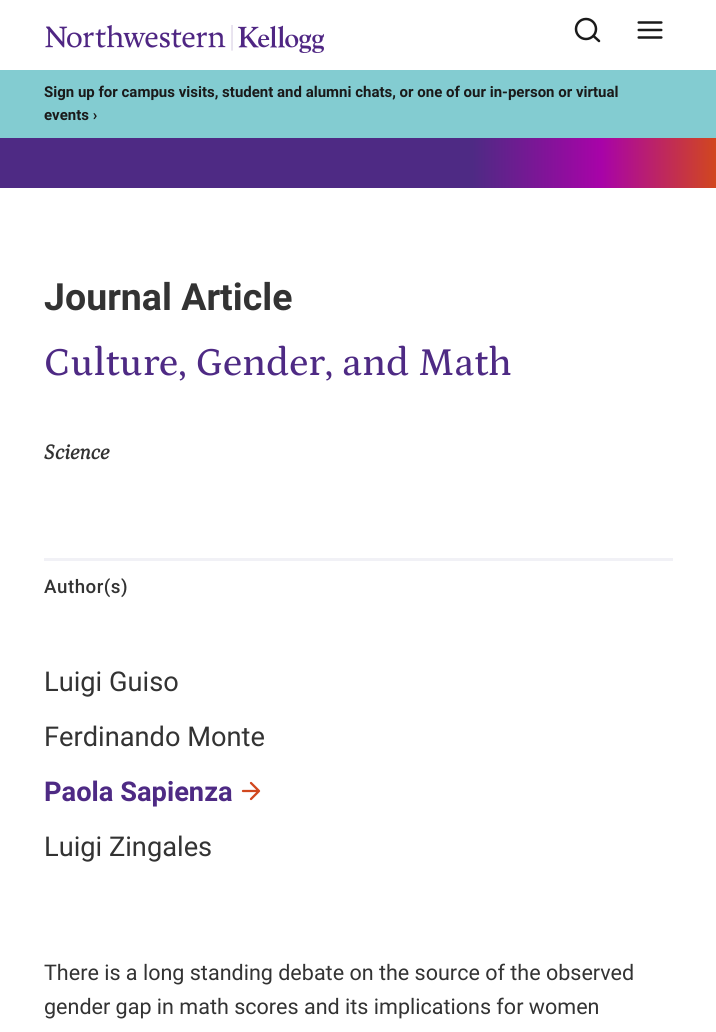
#include <cairo.h>
#include <math.h>
#include <stddef.h>


static void set_color(cairo_t *cr, unsigned color) {
    cairo_set_source_rgb(cr, (color >> 16) / 255.0, (color >> 8 & 255) / 255.0, (color & 255) / 255.0);
}

static void draw_text(cairo_t *cr, double x, double y, const char *s, const char *family, double size, int italic, int bold, unsigned color) {
    cairo_select_font_face(cr, family, italic ? CAIRO_FONT_SLANT_ITALIC : CAIRO_FONT_SLANT_NORMAL,
        bold ? CAIRO_FONT_WEIGHT_BOLD : CAIRO_FONT_WEIGHT_NORMAL);
    cairo_set_font_size(cr, size);
    set_color(cr, color);
    cairo_move_to(cr, x, y);
    cairo_show_text(cr, s);
}

static void draw_spaced(cairo_t *cr, double x, double y, const char *s, double letter, double word) {
    cairo_move_to(cr, x, y);
    while (*s) {
        char ch[5] = {0};
        int n = 0;
        do ch[n++] = *s++; while ((*s & 0xC0) == 0x80);
        cairo_show_text(cr, ch);
        cairo_rel_move_to(cr, letter + word * (*ch == ' '), 0);
    }
}

static void fill_rect(cairo_t *cr, double x, double y, double w, double h, unsigned color) {
    set_color(cr, color);
    cairo_rectangle(cr, x, y, w, h);
    cairo_fill(cr);
}

static void draw_image(cairo_t *cr, const char *path, double x, double y, double w, double h) {
    cairo_surface_t *image = cairo_image_surface_create_from_png(path);
    cairo_save(cr);
    cairo_set_source_surface(cr, image, x, y);
    cairo_rectangle(cr, x, y, w, h);
    cairo_fill(cr);
    cairo_restore(cr);
    cairo_surface_destroy(image);
}

int main(void) {
    cairo_surface_t *surface = cairo_image_surface_create(CAIRO_FORMAT_RGB24, 716, 1032);
    cairo_t *cr = cairo_create(surface);
    cairo_font_options_t *options = cairo_font_options_create();
    cairo_font_options_set_hint_metrics(options, CAIRO_HINT_METRICS_OFF);
    cairo_font_options_set_hint_style(options, CAIRO_HINT_STYLE_NONE);
    cairo_set_font_options(cr, options);
    cairo_set_miter_limit(cr, 4);
    cairo_pattern_t *gradient;
    set_color(cr, 0xFFFFFF);
    cairo_paint(cr);
    draw_image(cr, "assets/img1.png", 45, 25, 279, 28);
    cairo_arc(cr, 586, 29, 10, 0, 2 * M_PI);
    set_color(cr, 0x1A1A1A);
    cairo_set_line_width(cr, 2.5);
    cairo_stroke(cr);
    cairo_new_path(cr);
    cairo_move_to(cr, 599, 41);
    cairo_line_to(cr, 593.5, 36);
    cairo_set_line_cap(cr, CAIRO_LINE_CAP_ROUND);
    cairo_set_line_join(cr, CAIRO_LINE_JOIN_ROUND);
    cairo_stroke(cr);
    draw_image(cr, "assets/img2.png", 637, 21, 26, 18);
    fill_rect(cr, 0, 70, 716, 68, 0x83CCD1);
    draw_text(cr, 44, 97, "Sign up for campus visits, student and alumni chats, or one of our in-person or virtual", "Roboto", 15, 0, 1, 0x1A1A1A);
    draw_text(cr, 44, 120, "events ›", "Roboto", 15, 0, 1, 0x1A1A1A);
    gradient = cairo_pattern_create_linear(0, 163, 716, 162);
    cairo_pattern_add_color_stop_rgba(gradient, 0, 0.306, 0.165, 0.518, 1);
    cairo_pattern_add_color_stop_rgba(gradient, 0.66, 0.306, 0.165, 0.518, 1);
    cairo_pattern_add_color_stop_rgba(gradient, 0.84, 0.659, 0.012, 0.659, 1);
    cairo_pattern_add_color_stop_rgba(gradient, 1, 0.82, 0.278, 0.118, 1);
    cairo_set_source(cr, gradient);
    cairo_pattern_destroy(gradient);
    cairo_rectangle(cr, 0, 138, 716, 50);
    cairo_fill(cr);
    draw_text(cr, 44, 310, "Journal Article", "Roboto", 37.5, 0, 1, 0x333333);
    draw_text(cr, 44, 375, "Culture, Gender, and Math", "Petrona Medium", 40, 0, 0, 0x4E2A84);
    draw_text(cr, 44, 459, "Science", "Petrona", 21.55, 1, 1, 0x333333);
    fill_rect(cr, 44, 558, 629, 3, 0xF1F1F6);
    cairo_select_font_face(cr, "Roboto Medium", CAIRO_FONT_SLANT_NORMAL, CAIRO_FONT_WEIGHT_NORMAL);
    cairo_set_font_size(cr, 18.75);
    set_color(cr, 0x333333);
    draw_spaced(cr, 44, 593, "Author(s)", 0.5, 0);
    draw_text(cr, 44, 691, "Luigi Guiso", "Roboto", 27.25, 0, 0, 0x333333);
    draw_text(cr, 44, 746, "Ferdinando Monte", "Roboto", 27.25, 0, 0, 0x333333);
    draw_text(cr, 44, 801, "Paola Sapienza", "Roboto", 27.25, 0, 1, 0x4E2A84);
    cairo_new_path(cr);
    cairo_move_to(cr, 243, 791);
    cairo_line_to(cr, 259, 791);
    cairo_move_to(cr, 251, 783);
    cairo_line_to(cr, 259, 791);
    cairo_line_to(cr, 251, 799);
    set_color(cr, 0xD1471E);
    cairo_set_line_width(cr, 2.3);
    cairo_stroke(cr);
    draw_text(cr, 44, 856, "Luigi Zingales", "Roboto", 27.25, 0, 0, 0x333333);
    draw_text(cr, 44, 980, "There is a long standing debate on the source of the observed", "Roboto", 21.55, 0, 0, 0x333333);
    draw_text(cr, 44, 1014, "gender gap in math scores and its implications for women", "Roboto", 21.55, 0, 0, 0x333333);
    cairo_surface_write_to_png(surface, "output.png");
    cairo_font_options_destroy(options);
    cairo_destroy(cr);
    cairo_surface_destroy(surface);
    return 0;
}
